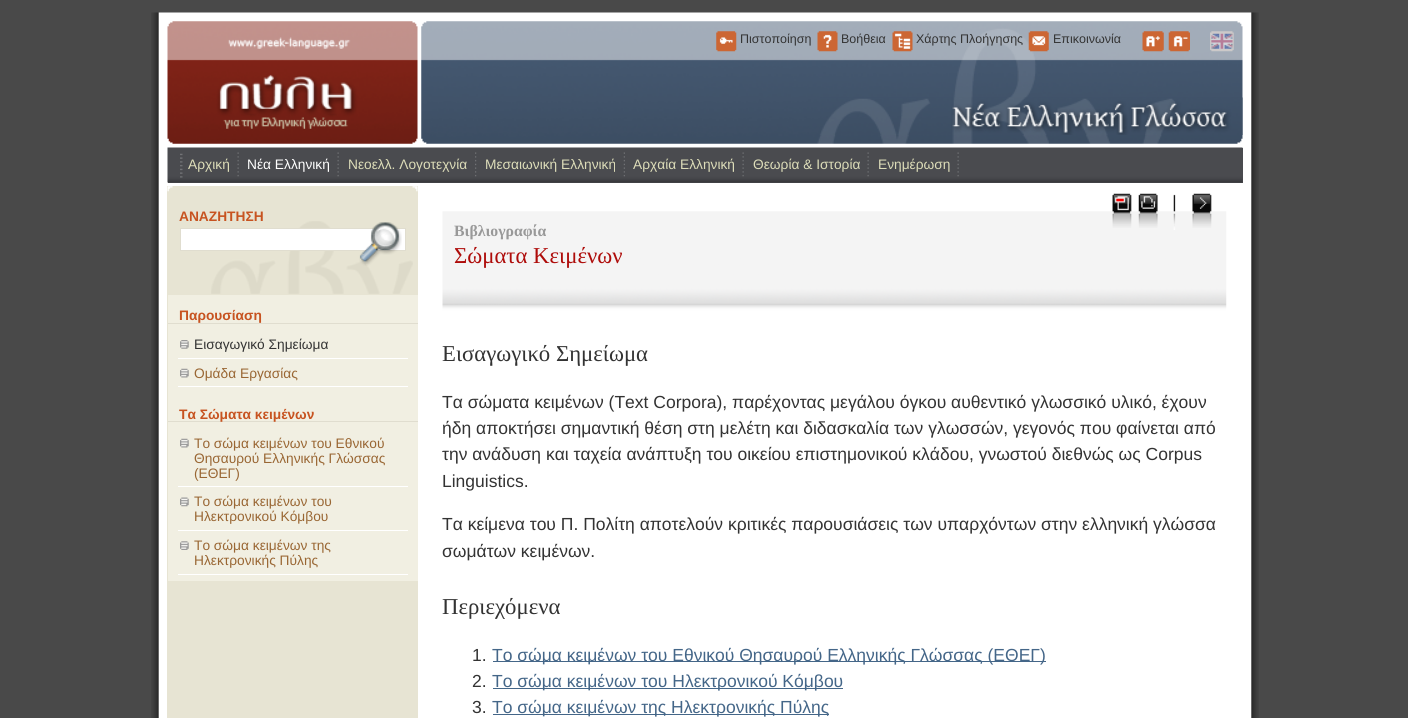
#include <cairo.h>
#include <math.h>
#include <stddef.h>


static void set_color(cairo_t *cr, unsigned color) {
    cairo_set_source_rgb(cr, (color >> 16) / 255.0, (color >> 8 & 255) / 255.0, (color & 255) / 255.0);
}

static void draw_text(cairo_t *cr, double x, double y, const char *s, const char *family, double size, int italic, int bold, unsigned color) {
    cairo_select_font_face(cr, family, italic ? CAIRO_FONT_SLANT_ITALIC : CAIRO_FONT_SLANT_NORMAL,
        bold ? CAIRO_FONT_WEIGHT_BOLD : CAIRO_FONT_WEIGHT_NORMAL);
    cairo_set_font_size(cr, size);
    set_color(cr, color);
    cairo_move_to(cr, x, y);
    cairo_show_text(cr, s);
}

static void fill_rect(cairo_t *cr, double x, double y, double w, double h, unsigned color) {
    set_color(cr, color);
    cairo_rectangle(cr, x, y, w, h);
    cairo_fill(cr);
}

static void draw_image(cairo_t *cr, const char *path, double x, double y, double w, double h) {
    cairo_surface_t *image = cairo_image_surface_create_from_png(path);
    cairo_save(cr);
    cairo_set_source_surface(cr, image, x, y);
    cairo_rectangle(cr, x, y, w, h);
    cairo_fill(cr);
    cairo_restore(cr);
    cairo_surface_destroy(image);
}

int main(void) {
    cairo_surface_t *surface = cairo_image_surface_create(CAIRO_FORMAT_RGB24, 1408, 718);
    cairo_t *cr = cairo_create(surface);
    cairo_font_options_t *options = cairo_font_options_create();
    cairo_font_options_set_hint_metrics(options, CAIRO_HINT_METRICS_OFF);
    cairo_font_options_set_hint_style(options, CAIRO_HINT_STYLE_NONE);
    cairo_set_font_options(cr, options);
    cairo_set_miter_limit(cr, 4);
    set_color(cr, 0x494949);
    cairo_paint(cr);
    draw_image(cr, "assets/img1.png", 151, 12, 1108, 706);
    draw_image(cr, "assets/img2.png", 167, 21, 251, 123);
    draw_image(cr, "assets/img3.png", 421, 21, 822, 123);
    draw_image(cr, "assets/img4.png", 820, 97, 423, 38);
    draw_image(cr, "assets/img5.png", 716, 31, 21, 21);
    draw_text(cr, 740, 43, "Πιστοποίηση", "Liberation Sans", 12.5, 0, 0, 0x333333);
    draw_image(cr, "assets/img6.png", 817, 31, 21, 21);
    draw_text(cr, 841, 43, "Βοήθεια", "Liberation Sans", 12.5, 0, 0, 0x333333);
    draw_image(cr, "assets/img7.png", 892, 31, 21, 21);
    draw_text(cr, 916, 43, "Χάρτης Πλοήγησης", "Liberation Sans", 12.5, 0, 0, 0x333333);
    draw_image(cr, "assets/img8.png", 1028, 31, 21, 21);
    draw_text(cr, 1053, 43, "Επικοινωνία", "Liberation Sans", 12.5, 0, 0, 0x333333);
    draw_image(cr, "assets/img9.png", 1142, 31, 22, 21);
    draw_image(cr, "assets/img10.png", 1168, 31, 22, 21);
    draw_image(cr, "assets/img11.png", 1210, 31, 24, 21);
    fill_rect(cr, 168, 148, 1075, 35, 0x4A4B4F);
    draw_image(cr, "assets/img12.png", 167, 147, 1076, 36);
    draw_image(cr, "assets/img13.png", 180, 153, 3, 25);
    draw_image(cr, "assets/img14.png", 237, 152, 2, 25);
    draw_text(cr, 188, 169, "Αρχική", "Liberation Sans", 13.75, 0, 0, 0xDDDDB9);
    draw_image(cr, "assets/img14.png", 337, 152, 2, 25);
    draw_text(cr, 247, 169, "Νέα Ελληνική", "Liberation Sans", 13.75, 0, 0, 0xFFFFFF);
    draw_image(cr, "assets/img15.png", 475, 152, 2, 25);
    draw_text(cr, 348, 169, "Νεοελλ. Λογοτεχνία", "Liberation Sans", 13.75, 0, 0, 0xDDDDB9);
    draw_image(cr, "assets/img16.png", 623, 152, 2, 25);
    draw_text(cr, 485, 169, "Μεσαιωνική Ελληνική", "Liberation Sans", 13.75, 0, 0, 0xDDDDB9);
    draw_image(cr, "assets/img14.png", 742, 152, 2, 25);
    draw_text(cr, 633, 169, "Αρχαία Ελληνική", "Liberation Sans", 13.75, 0, 0, 0xDDDDB9);
    draw_image(cr, "assets/img14.png", 867, 152, 2, 25);
    draw_text(cr, 753, 169, "Θεωρία & Ιστορία", "Liberation Sans", 13.75, 0, 0, 0xDDDDB9);
    draw_image(cr, "assets/img14.png", 957, 152, 2, 25);
    draw_text(cr, 878, 169, "Ενημέρωση", "Liberation Sans", 13.75, 0, 0, 0xDDDDB9);
    fill_rect(cr, 167, 186, 251, 532, 0xE7E4D3);
    draw_image(cr, "assets/img17.png", 167, 186, 251, 6);
    draw_image(cr, "assets/img18.png", 211, 221, 202, 73);
    draw_text(cr, 179, 221, "ΑΝΑΖΗΤΗΣΗ", "Liberation Sans", 13.75, 0, 1, 0xC75320);
    set_color(cr, 0xFFFFFF);
    cairo_rectangle(cr, 180.5, 228.5, 225, 22);
    cairo_fill_preserve(cr);
    set_color(cr, 0xE0DDCF);
    cairo_set_line_width(cr, 1);
    cairo_stroke(cr);
    draw_image(cr, "assets/img19.png", 359, 222, 43, 44);
    fill_rect(cr, 168, 295, 250, 28, 0xF1EFE2);
    fill_rect(cr, 168, 323, 250, 1, 0xE0DDCF);
    draw_text(cr, 179, 320, "Παρουσίαση", "Liberation Sans", 13.75, 0, 1, 0xC75320);
    fill_rect(cr, 168, 324, 250, 257, 0xF1EFE2);
    draw_image(cr, "assets/img20.png", 180, 340, 9, 9);
    fill_rect(cr, 178, 358, 230, 1, 0xFFFFFF);
    draw_text(cr, 194, 349, "Εισαγωγικό Σημείωμα", "Liberation Sans", 13.75, 0, 0, 0x333333);
    draw_image(cr, "assets/img21.png", 180, 368, 9, 10);
    fill_rect(cr, 178, 386, 230, 1, 0xFFFFFF);
    draw_text(cr, 194, 378, "Ομάδα Εργασίας", "Liberation Sans", 13.75, 0, 0, 0x996633);
    fill_rect(cr, 168, 421, 250, 1, 0xE0DDCF);
    draw_text(cr, 179, 419, "Τα Σώματα κειμένων", "Liberation Sans", 13.75, 0, 1, 0xC75320);
    draw_image(cr, "assets/img21.png", 180, 438, 9, 10);
    fill_rect(cr, 178, 486, 230, 1, 0xFFFFFF);
    draw_text(cr, 194, 448, "Το σώμα κειμένων του Εθνικού", "Liberation Sans", 13.75, 0, 0, 0x996633);
    draw_text(cr, 194, 463, "Θησαυρού Ελληνικής Γλώσσας", "Liberation Sans", 13.75, 0, 0, 0x996633);
    draw_text(cr, 194, 478, "(ΕΘΕΓ)", "Liberation Sans", 13.75, 0, 0, 0x996633);
    draw_image(cr, "assets/img22.png", 180, 497, 9, 10);
    fill_rect(cr, 178, 530, 230, 1, 0xFFFFFF);
    draw_text(cr, 194, 506, "Το σώμα κειμένων του", "Liberation Sans", 13.75, 0, 0, 0x996633);
    draw_text(cr, 194, 521, "Ηλεκτρονικού Κόμβου", "Liberation Sans", 13.75, 0, 0, 0x996633);
    draw_image(cr, "assets/img23.png", 180, 541, 9, 9);
    fill_rect(cr, 178, 574, 230, 1, 0xFFFFFF);
    draw_text(cr, 194, 550, "Το σώμα κειμένων της", "Liberation Sans", 13.75, 0, 0, 0x996633);
    draw_text(cr, 194, 565, "Ηλεκτρονικής Πύλης", "Liberation Sans", 13.75, 0, 0, 0x996633);
    draw_image(cr, "assets/img28.png", 442, 211, 785, 100);
    draw_image(cr, "assets/img24.png", 1112, 193, 20, 35);
    draw_image(cr, "assets/img25.png", 1138, 193, 20, 35);
    draw_image(cr, "assets/img26.png", 1173, 194, 3, 36);
    draw_image(cr, "assets/img27.png", 1192, 193, 20, 35);
    draw_text(cr, 454, 236, "Βιβλιογραφία", "Liberation Serif", 15.75, 0, 1, 0x999999);
    draw_text(cr, 454, 263, "Σώματα Κειμένων", "Liberation Serif", 22.75, 0, 0, 0xAE0C0A);
    draw_text(cr, 442, 361, "Εισαγωγικό Σημείωμα", "Liberation Serif", 22.75, 0, 0, 0x333333);
    draw_text(cr, 442, 408, "Τα σώματα κειμένων (Text Corpora), παρέχοντας μεγάλου όγκου αυθεντικό γλωσσικό υλικό, έχουν", "Liberation Sans", 17.5, 0, 0, 0x333333);
    draw_text(cr, 442, 434, "ήδη αποκτήσει σημαντική θέση στη μελέτη και διδασκαλία των γλωσσών, γεγονός που φαίνεται από", "Liberation Sans", 17.5, 0, 0, 0x333333);
    draw_text(cr, 442, 460, "την ανάδυση και ταχεία ανάπτυξη του οικείου επιστημονικού κλάδου, γνωστού διεθνώς ως Corpus", "Liberation Sans", 17.5, 0, 0, 0x333333);
    draw_text(cr, 442, 487, "Linguistics.", "Liberation Sans", 17.5, 0, 0, 0x333333);
    draw_text(cr, 442, 530, "Τα κείμενα του Π. Πολίτη αποτελούν κριτικές παρουσιάσεις των υπαρχόντων στην ελληνική γλώσσα", "Liberation Sans", 17.5, 0, 0, 0x333333);
    draw_text(cr, 442, 557, "σωμάτων κειμένων.", "Liberation Sans", 17.5, 0, 0, 0x333333);
    draw_text(cr, 442, 614, "Περιεχόμενα", "Liberation Serif", 22.75, 0, 0, 0x333333);
    draw_text(cr, 472, 661, "1.", "Liberation Sans", 17.5, 0, 0, 0x333333);
    fill_rect(cr, 493, 661, 553, 1, 0x446688);
    draw_text(cr, 492, 661, "Το σώμα κειμένων του Εθνικού Θησαυρού Ελληνικής Γλώσσας (ΕΘΕΓ)", "Liberation Sans", 17.5, 0, 0, 0x446688);
    draw_text(cr, 472, 687, "2.", "Liberation Sans", 17.5, 0, 0, 0x333333);
    fill_rect(cr, 493, 688, 350, 1, 0x446688);
    draw_text(cr, 492, 687, "Το σώμα κειμένων του Ηλεκτρονικού Κόμβου", "Liberation Sans", 17.5, 0, 0, 0x446688);
    draw_text(cr, 472, 713, "3.", "Liberation Sans", 17.5, 0, 0, 0x333333);
    fill_rect(cr, 493, 714, 336, 1, 0x446688);
    draw_text(cr, 492, 713, "Το σώμα κειμένων της Ηλεκτρονικής Πύλης", "Liberation Sans", 17.5, 0, 0, 0x446688);
    cairo_surface_write_to_png(surface, "output.png");
    cairo_font_options_destroy(options);
    cairo_destroy(cr);
    cairo_surface_destroy(surface);
    return 0;
}
